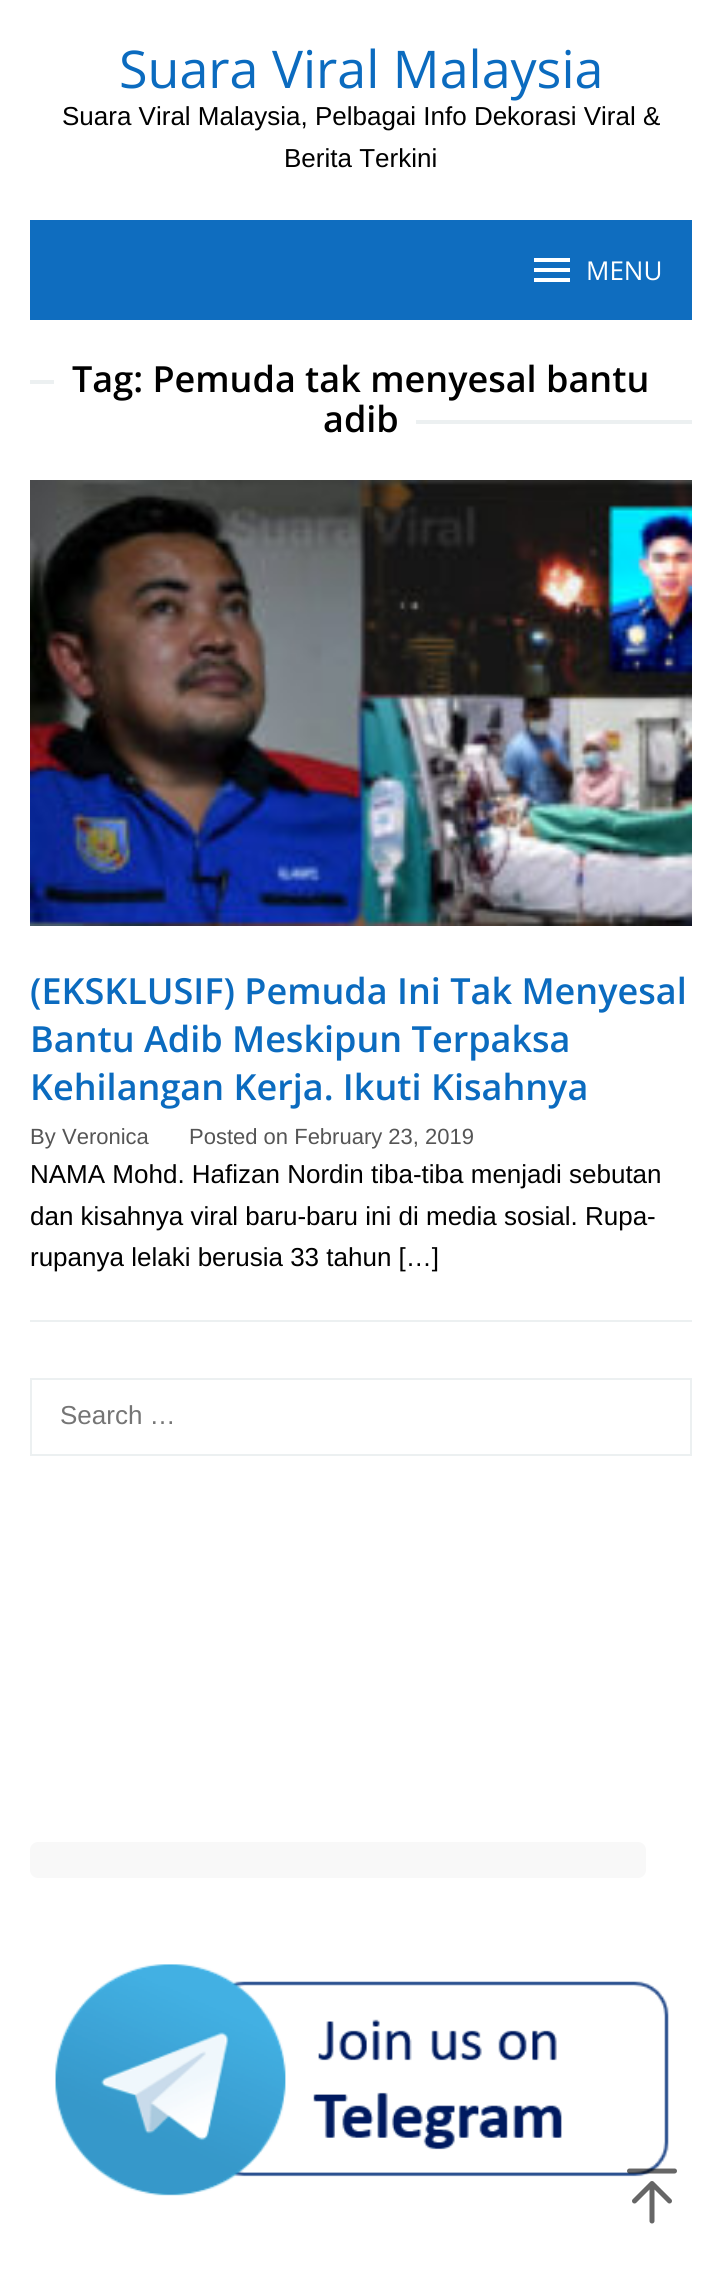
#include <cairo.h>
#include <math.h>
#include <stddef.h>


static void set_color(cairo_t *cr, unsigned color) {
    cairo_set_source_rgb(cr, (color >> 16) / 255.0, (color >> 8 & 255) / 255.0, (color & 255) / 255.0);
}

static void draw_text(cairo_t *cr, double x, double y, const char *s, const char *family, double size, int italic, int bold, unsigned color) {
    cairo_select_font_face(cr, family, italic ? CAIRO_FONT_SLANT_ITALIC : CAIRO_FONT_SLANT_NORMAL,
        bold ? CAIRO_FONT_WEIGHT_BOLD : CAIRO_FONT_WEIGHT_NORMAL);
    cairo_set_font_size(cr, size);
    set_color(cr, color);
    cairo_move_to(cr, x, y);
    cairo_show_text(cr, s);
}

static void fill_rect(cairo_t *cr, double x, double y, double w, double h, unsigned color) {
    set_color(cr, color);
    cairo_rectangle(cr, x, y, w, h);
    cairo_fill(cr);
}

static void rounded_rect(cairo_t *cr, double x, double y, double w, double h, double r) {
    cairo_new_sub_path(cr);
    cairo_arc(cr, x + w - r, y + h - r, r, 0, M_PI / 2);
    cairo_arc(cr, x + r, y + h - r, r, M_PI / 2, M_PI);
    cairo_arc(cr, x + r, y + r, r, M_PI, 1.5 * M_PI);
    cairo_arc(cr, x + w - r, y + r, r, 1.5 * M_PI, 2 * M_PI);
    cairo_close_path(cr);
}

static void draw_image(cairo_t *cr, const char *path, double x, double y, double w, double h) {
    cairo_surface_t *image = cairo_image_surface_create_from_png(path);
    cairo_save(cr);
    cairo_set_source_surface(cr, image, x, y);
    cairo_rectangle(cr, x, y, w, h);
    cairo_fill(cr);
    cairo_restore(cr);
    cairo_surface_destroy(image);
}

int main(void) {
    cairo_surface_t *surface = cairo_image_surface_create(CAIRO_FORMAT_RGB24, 722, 2273);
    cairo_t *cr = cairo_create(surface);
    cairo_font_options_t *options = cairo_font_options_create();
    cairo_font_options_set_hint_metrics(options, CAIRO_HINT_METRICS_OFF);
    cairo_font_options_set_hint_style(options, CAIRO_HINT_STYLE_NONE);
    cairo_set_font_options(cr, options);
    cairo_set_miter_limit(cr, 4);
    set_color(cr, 0xFFFFFF);
    cairo_paint(cr);
    draw_text(cr, 119, 88, "Suara Viral Malaysia", "Open Sans", 52, 0, 0, 0x0B6BBF);
    draw_text(cr, 62, 125, "Suara Viral Malaysia, Pelbagai Info Dekorasi Viral &", "Liberation Sans", 26, 0, 0, 0x000000);
    draw_text(cr, 284, 167, "Berita Terkini", "Liberation Sans", 26, 0, 0, 0x000000);
    fill_rect(cr, 30, 220, 662, 100, 0x0F6DBF);
    set_color(cr, 0xFFFFFF);
    cairo_new_path(cr);
    cairo_move_to(cr, 534, 282);
    cairo_line_to(cr, 570, 282);
    cairo_line_to(cr, 570, 278);
    cairo_line_to(cr, 534, 278);
    cairo_close_path(cr);
    cairo_move_to(cr, 534, 272);
    cairo_line_to(cr, 570, 272);
    cairo_line_to(cr, 570, 268);
    cairo_line_to(cr, 534, 268);
    cairo_close_path(cr);
    cairo_move_to(cr, 534, 258);
    cairo_line_to(cr, 534, 262);
    cairo_line_to(cr, 570, 262);
    cairo_line_to(cr, 570, 258);
    cairo_close_path(cr);
    cairo_fill(cr);
    draw_text(cr, 586, 280, "MENU", "Open Sans", 26, 0, 0, 0xFFFFFF);
    fill_rect(cr, 30, 380, 24, 4, 0xECF0F1);
    draw_text(cr, 72, 392, "Tag: Pemuda tak menyesal bantu", "Open Sans SemiBold", 36, 0, 0, 0x000000);
    draw_text(cr, 323, 432, "adib", "Open Sans SemiBold", 36, 0, 0, 0x000000);
    fill_rect(cr, 416, 420, 276, 4, 0xECF0F1);
    fill_rect(cr, 30, 1320, 662, 2, 0xECF0F1);
    draw_image(cr, "assets/img1.png", 30, 480, 662, 446);
    draw_text(cr, 30, 1004, "(EKSKLUSIF) Pemuda Ini Tak Menyesal", "Open Sans SemiBold", 36, 0, 0, 0x0B6BBF);
    draw_text(cr, 30, 1052, "Bantu Adib Meskipun Terpaksa", "Open Sans SemiBold", 36, 0, 0, 0x0B6BBF);
    draw_text(cr, 30, 1100, "Kehilangan Kerja. Ikuti Kisahnya", "Open Sans SemiBold", 36, 0, 0, 0x0B6BBF);
    draw_text(cr, 30, 1144, "By", "Liberation Sans", 22, 0, 0, 0x555555);
    draw_text(cr, 62, 1144, "Veronica", "Liberation Sans", 22, 0, 0, 0x555555);
    draw_text(cr, 189, 1144, "Posted on February 23, 2019", "Liberation Sans", 22, 0, 0, 0x555555);
    draw_text(cr, 30, 1183, "NAMA Mohd. Hafizan Nordin tiba-tiba menjadi sebutan", "Liberation Sans", 26, 0, 0, 0x000000);
    draw_text(cr, 30, 1225, "dan kisahnya viral baru-baru ini di media sosial. Rupa-", "Liberation Sans", 26, 0, 0, 0x000000);
    draw_text(cr, 30, 1266, "rupanya lelaki berusia 33 tahun […]", "Liberation Sans", 26, 0, 0, 0x000000);
    cairo_rectangle(cr, 31, 1379, 660, 76);
    set_color(cr, 0xECF0F1);
    cairo_stroke(cr);
    draw_text(cr, 60, 1424, "Search …", "Liberation Sans", 26, 0, 0, 0x757575);
    set_color(cr, 0xF8F8F8);
    rounded_rect(cr, 30, 1842, 616, 36, 8);
    cairo_fill(cr);
    draw_image(cr, "assets/img2.png", 55, 1964, 614, 232);
    cairo_new_path(cr);
    cairo_move_to(cr, 629.5, 2171);
    cairo_line_to(cr, 674.5, 2171);
    cairo_set_source_rgba(cr, 0, 0, 0, 0.6);
    cairo_set_line_width(cr, 5);
    cairo_set_line_cap(cr, CAIRO_LINE_CAP_ROUND);
    cairo_set_line_join(cr, CAIRO_LINE_JOIN_ROUND);
    cairo_stroke(cr);
    cairo_new_path(cr);
    cairo_move_to(cr, 652, 2221);
    cairo_line_to(cr, 652, 2183.5);
    cairo_move_to(cr, 634.5, 2201);
    cairo_line_to(cr, 652, 2183.5);
    cairo_line_to(cr, 669.5, 2201);
    set_color(cr, 0x666666);
    cairo_stroke(cr);
    cairo_surface_write_to_png(surface, "output.png");
    cairo_font_options_destroy(options);
    cairo_destroy(cr);
    cairo_surface_destroy(surface);
    return 0;
}
